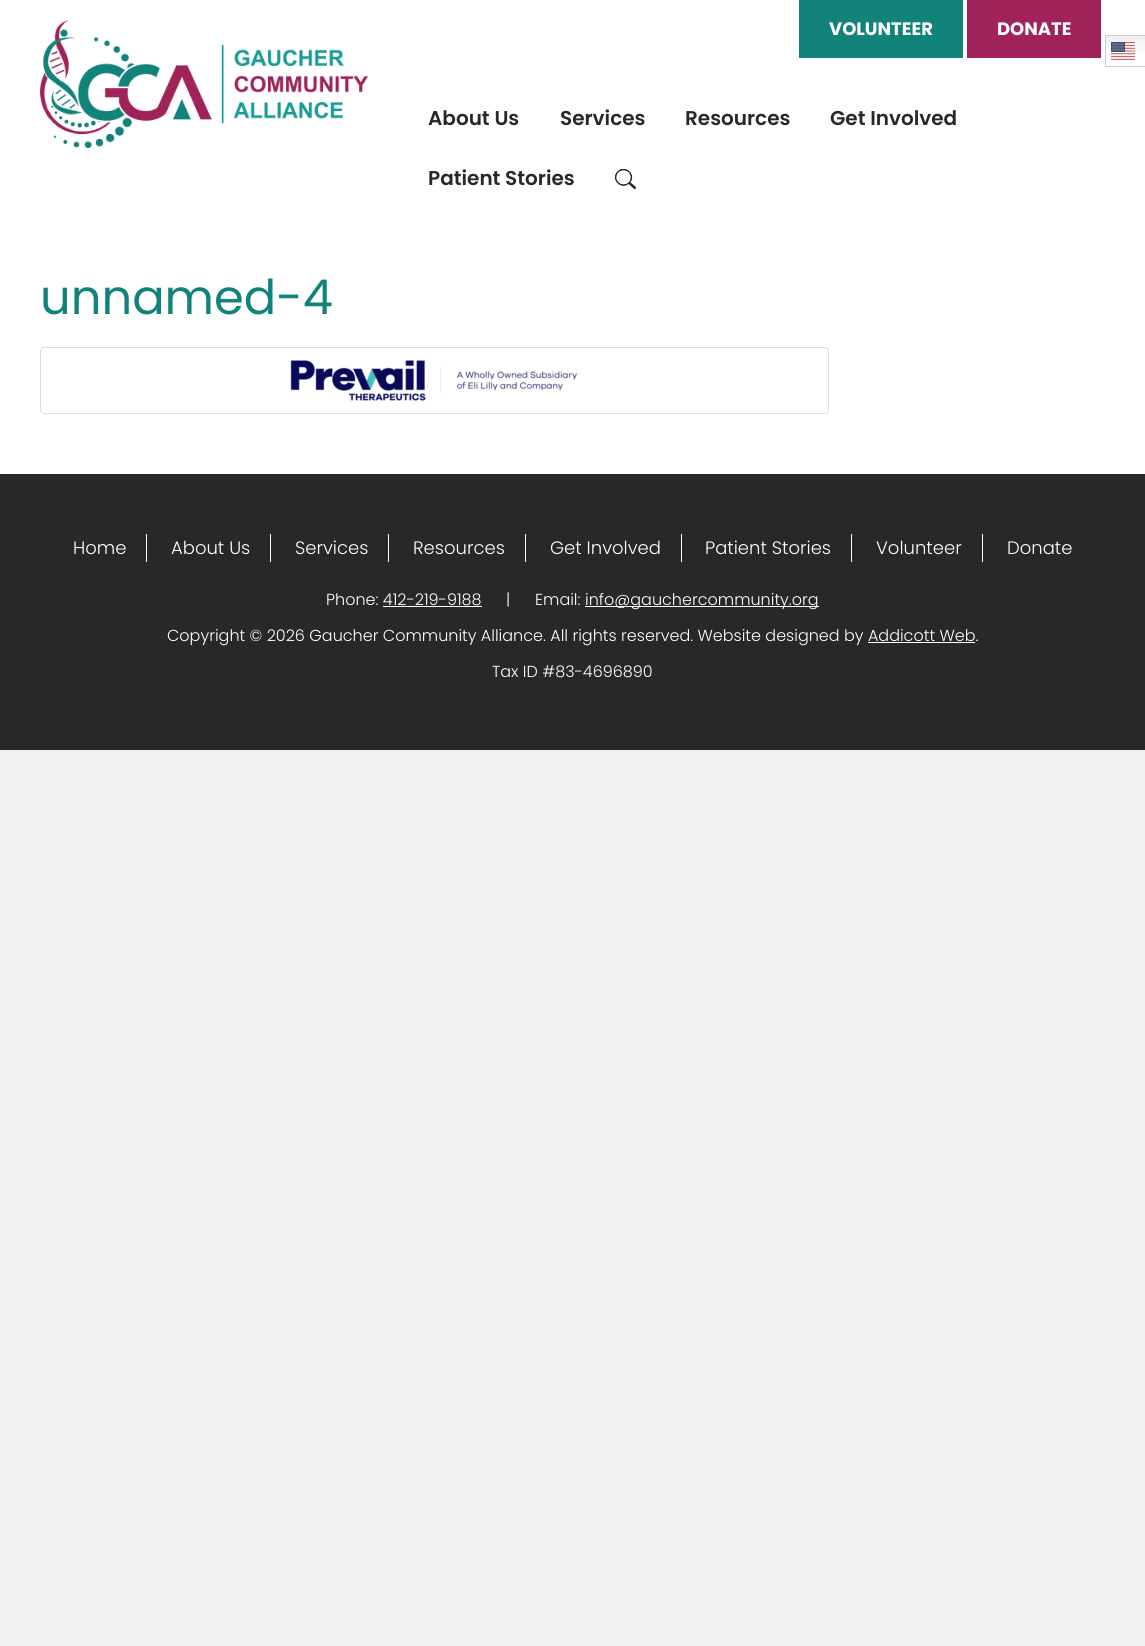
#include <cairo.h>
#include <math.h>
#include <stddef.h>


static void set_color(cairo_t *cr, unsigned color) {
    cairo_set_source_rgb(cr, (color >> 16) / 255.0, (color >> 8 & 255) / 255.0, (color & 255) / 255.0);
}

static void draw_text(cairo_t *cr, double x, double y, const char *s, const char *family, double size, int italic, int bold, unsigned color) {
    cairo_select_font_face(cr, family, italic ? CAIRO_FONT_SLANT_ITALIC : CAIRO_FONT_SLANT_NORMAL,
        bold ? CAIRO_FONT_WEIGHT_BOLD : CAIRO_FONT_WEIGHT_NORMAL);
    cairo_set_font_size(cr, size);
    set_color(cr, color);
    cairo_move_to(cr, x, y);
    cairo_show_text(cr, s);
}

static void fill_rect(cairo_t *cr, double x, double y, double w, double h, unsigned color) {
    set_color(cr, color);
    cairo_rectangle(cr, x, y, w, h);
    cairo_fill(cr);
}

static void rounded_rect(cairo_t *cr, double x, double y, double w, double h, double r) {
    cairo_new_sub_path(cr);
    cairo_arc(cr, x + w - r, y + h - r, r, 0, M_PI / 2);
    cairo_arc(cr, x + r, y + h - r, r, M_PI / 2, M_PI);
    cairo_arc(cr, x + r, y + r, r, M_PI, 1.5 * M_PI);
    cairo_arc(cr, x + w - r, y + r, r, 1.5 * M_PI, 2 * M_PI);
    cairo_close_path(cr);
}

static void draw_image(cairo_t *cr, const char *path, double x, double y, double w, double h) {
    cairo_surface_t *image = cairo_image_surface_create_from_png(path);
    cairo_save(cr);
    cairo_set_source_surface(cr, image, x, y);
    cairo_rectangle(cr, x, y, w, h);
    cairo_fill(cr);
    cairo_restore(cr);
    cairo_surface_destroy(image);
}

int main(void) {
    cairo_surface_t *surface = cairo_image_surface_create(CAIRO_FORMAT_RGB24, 1145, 1646);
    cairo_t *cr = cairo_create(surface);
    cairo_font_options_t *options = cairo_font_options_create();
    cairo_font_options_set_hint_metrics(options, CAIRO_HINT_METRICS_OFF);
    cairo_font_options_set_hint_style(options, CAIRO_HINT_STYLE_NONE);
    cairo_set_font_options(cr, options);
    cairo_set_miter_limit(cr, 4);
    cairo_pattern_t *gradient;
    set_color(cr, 0xF1F1F1);
    cairo_paint(cr);
    fill_rect(cr, 0, 0, 1145, 474, 0xFFFFFF);
    draw_image(cr, "assets/img1.png", 40, 20, 328, 128);
    fill_rect(cr, 799, 0, 164, 58, 0x12837A);
    draw_text(cr, 829, 35, "VOLUNTEER", "Poppins", 18, 0, 1, 0xFFFFFF);
    fill_rect(cr, 967, 0, 134, 58, 0x9F2358);
    draw_text(cr, 997, 35, "DONATE", "Poppins", 18, 0, 1, 0xFFFFFF);
    gradient = cairo_pattern_create_linear(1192, 35, 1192, 67);
    cairo_pattern_add_color_stop_rgba(gradient, 0, 0.937, 0.937, 0.937, 1);
    cairo_pattern_add_color_stop_rgba(gradient, 0.7, 1, 1, 1, 1);
    cairo_set_source(cr, gradient);
    cairo_pattern_destroy(gradient);
    cairo_rectangle(cr, 1106, 36, 39, 18);
    cairo_fill(cr);
    cairo_rectangle(cr, 1105.5, 35.5, 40, 31);
    set_color(cr, 0xCCCCCC);
    cairo_set_line_width(cr, 1);
    cairo_stroke(cr);
    draw_image(cr, "assets/img2.png", 1111, 42, 24, 18);
    draw_text(cr, 428, 125, "About Us", "Poppins SemiBold", 20, 0, 0, 0x282828);
    draw_text(cr, 560, 125, "Services", "Poppins SemiBold", 20, 0, 0, 0x282828);
    draw_text(cr, 685, 125, "Resources", "Poppins SemiBold", 20, 0, 0, 0x282828);
    draw_text(cr, 830, 125, "Get Involved", "Poppins SemiBold", 20, 0, 0, 0x282828);
    draw_text(cr, 428, 185, "Patient Stories", "Poppins SemiBold", 20, 0, 0, 0x282828);
    draw_image(cr, "assets/img3.png", 615, 169, 21, 20);
    draw_text(cr, 40, 314, "unnamed-4", "Poppins", 48, 0, 0, 0x12837A);
    rounded_rect(cr, 40.5, 347.5, 788, 66, 3.5);
    set_color(cr, 0xDDDDDD);
    cairo_stroke(cr);
    draw_image(cr, "assets/img4.png", 290, 360, 288, 41);
    fill_rect(cr, 0, 474, 1145, 276, 0x282828);
    fill_rect(cr, 146, 534, 1, 28, 0xFFFFFF);
    draw_text(cr, 73, 554, "Home", "Poppins Light", 18, 0, 0, 0xFFFFFF);
    fill_rect(cr, 270, 534, 1, 28, 0xFFFFFF);
    draw_text(cr, 171, 554, "About Us", "Poppins Light", 18, 0, 0, 0xFFFFFF);
    fill_rect(cr, 388, 534, 1, 28, 0xFFFFFF);
    draw_text(cr, 295, 554, "Services", "Poppins Light", 18, 0, 0, 0xFFFFFF);
    fill_rect(cr, 525, 534, 1, 28, 0xFFFFFF);
    draw_text(cr, 413, 554, "Resources", "Poppins Light", 18, 0, 0, 0xFFFFFF);
    fill_rect(cr, 681, 534, 1, 28, 0xFFFFFF);
    draw_text(cr, 550, 554, "Get Involved", "Poppins Light", 18, 0, 0, 0xFFFFFF);
    fill_rect(cr, 851, 534, 1, 28, 0xFFFFFF);
    draw_text(cr, 705, 554, "Patient Stories", "Poppins Light", 18, 0, 0, 0xFFFFFF);
    fill_rect(cr, 982, 534, 1, 28, 0xFFFFFF);
    draw_text(cr, 876, 554, "Volunteer", "Poppins Light", 18, 0, 0, 0xFFFFFF);
    draw_text(cr, 1007, 554, "Donate", "Poppins Light", 18, 0, 0, 0xFFFFFF);
    draw_text(cr, 326, 605, "Phone: 412-219-9188", "Poppins Light", 16, 0, 0, 0xFFFFFF);
    draw_text(cr, 506, 605, "|", "Poppins Light", 16, 0, 0, 0xFFFFFF);
    draw_text(cr, 535, 605, "Email:", "Poppins Light", 16, 0, 0, 0xFFFFFF);
    fill_rect(cr, 585, 606, 234, 1, 0xFFFFFF);
    draw_text(cr, 585, 605, "info@gauchercommunity.org", "Poppins Light", 16, 0, 0, 0xFFFFFF);
    fill_rect(cr, 383, 606, 99, 1, 0xFFFFFF);
    draw_text(cr, 167, 641, "Copyright © 2026 Gaucher Community Alliance. All rights reserved. Website designed by Addicott Web.", "Poppins Light", 16, 0, 0, 0xFFFFFF);
    fill_rect(cr, 868, 642, 107, 1, 0xFFFFFF);
    draw_text(cr, 492, 677, "Tax ID #83-4696890", "Poppins Light", 16, 0, 0, 0xFFFFFF);
    cairo_surface_write_to_png(surface, "output.png");
    cairo_font_options_destroy(options);
    cairo_destroy(cr);
    cairo_surface_destroy(surface);
    return 0;
}
